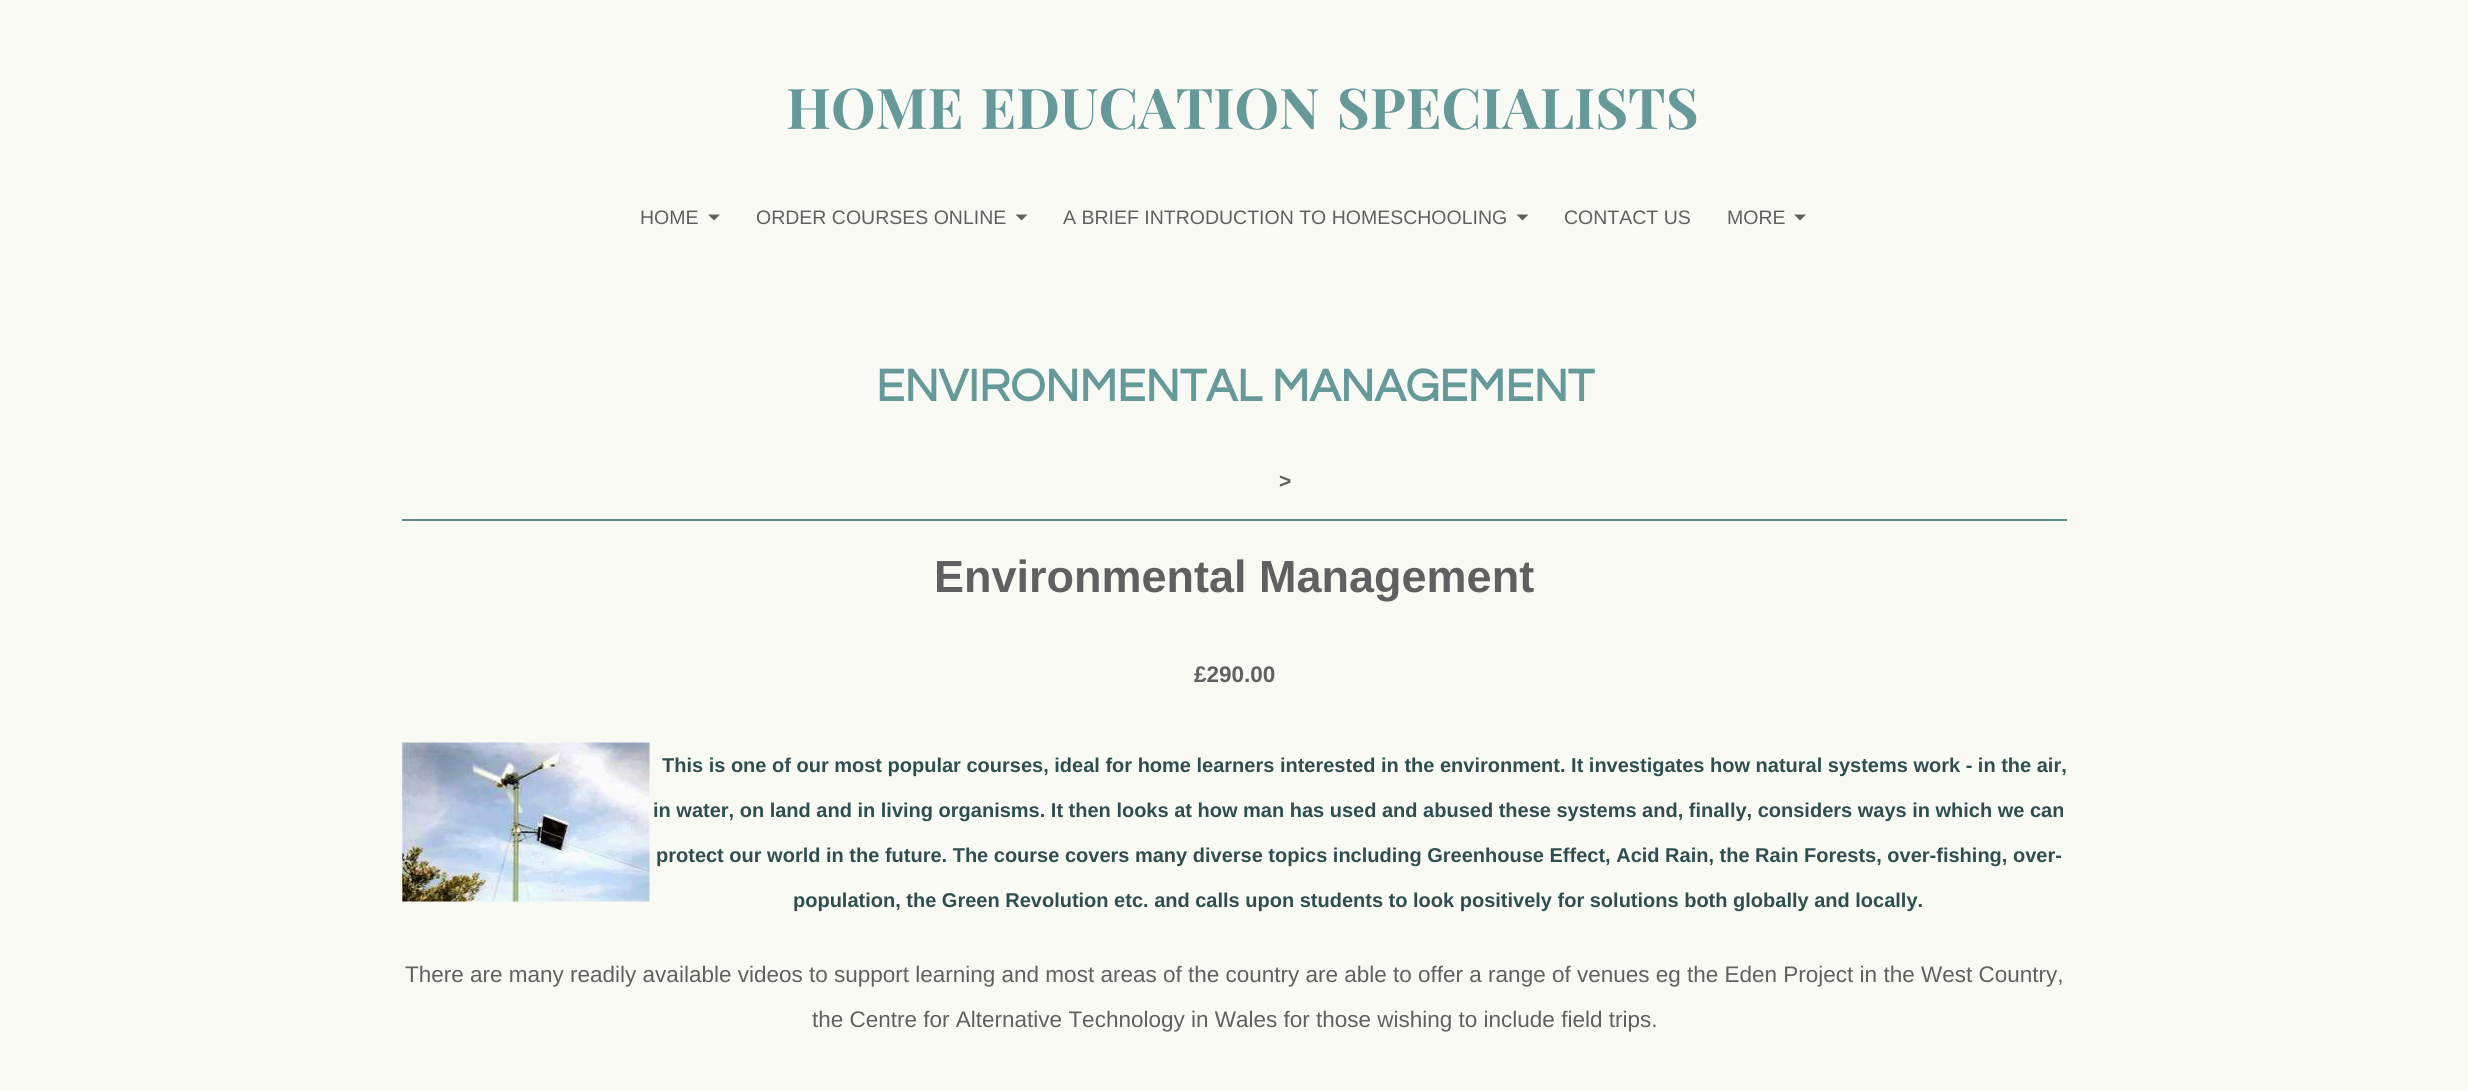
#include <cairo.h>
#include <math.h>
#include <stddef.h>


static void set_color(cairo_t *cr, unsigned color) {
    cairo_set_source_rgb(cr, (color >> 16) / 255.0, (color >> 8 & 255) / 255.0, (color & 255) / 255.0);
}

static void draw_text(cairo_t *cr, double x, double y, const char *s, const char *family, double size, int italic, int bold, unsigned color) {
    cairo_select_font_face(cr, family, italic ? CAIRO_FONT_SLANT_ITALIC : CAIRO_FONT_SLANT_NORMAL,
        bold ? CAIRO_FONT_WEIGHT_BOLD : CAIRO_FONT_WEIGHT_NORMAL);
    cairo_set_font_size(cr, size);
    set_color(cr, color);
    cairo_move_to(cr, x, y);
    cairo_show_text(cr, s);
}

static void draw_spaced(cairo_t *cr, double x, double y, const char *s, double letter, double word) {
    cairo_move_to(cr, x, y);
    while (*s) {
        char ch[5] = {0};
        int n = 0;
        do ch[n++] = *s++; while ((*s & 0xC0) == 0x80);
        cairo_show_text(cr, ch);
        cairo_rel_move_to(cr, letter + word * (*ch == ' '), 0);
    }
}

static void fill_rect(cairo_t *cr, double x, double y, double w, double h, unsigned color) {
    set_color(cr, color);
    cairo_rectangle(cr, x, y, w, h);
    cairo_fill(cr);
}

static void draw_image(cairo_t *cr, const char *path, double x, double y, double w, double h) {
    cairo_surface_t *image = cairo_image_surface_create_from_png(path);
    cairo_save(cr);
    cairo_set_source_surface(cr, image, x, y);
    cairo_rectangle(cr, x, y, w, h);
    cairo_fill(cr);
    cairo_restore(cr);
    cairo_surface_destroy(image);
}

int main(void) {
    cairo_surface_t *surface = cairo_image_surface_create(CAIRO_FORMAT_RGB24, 2468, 1090);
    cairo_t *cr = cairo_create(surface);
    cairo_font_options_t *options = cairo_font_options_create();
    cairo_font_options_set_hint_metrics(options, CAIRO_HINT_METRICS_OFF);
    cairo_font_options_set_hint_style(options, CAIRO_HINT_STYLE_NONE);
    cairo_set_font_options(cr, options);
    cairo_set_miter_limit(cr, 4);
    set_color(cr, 0xFAFAF5);
    cairo_paint(cr);
    cairo_select_font_face(cr, "Playfair Display", CAIRO_FONT_SLANT_NORMAL, CAIRO_FONT_WEIGHT_BOLD);
    cairo_set_font_size(cr, 56.25);
    set_color(cr, 0x669999);
    draw_spaced(cr, 786, 129, "HOME EDUCATION SPECIALISTS", 0, 4);
    draw_text(cr, 640, 224, "HOME", "Liberation Sans", 19.5, 0, 0, 0x606060);
    cairo_new_path(cr);
    cairo_move_to(cr, 708, 214.5);
    cairo_line_to(cr, 720, 214.5);
    cairo_line_to(cr, 714, 220.5);
    cairo_close_path(cr);
    cairo_fill(cr);
    draw_text(cr, 756, 224, "ORDER COURSES ONLINE", "Liberation Sans", 19.5, 0, 0, 0x606060);
    cairo_new_path(cr);
    cairo_move_to(cr, 1015.5, 214.5);
    cairo_line_to(cr, 1027.5, 214.5);
    cairo_line_to(cr, 1021.5, 220.5);
    cairo_close_path(cr);
    cairo_fill(cr);
    draw_text(cr, 1063, 224, "A BRIEF INTRODUCTION TO HOMESCHOOLING", "Liberation Sans", 19.5, 0, 0, 0x606060);
    cairo_new_path(cr);
    cairo_move_to(cr, 1516.5, 214.5);
    cairo_line_to(cr, 1528.5, 214.5);
    cairo_line_to(cr, 1522.5, 220.5);
    cairo_close_path(cr);
    cairo_fill(cr);
    draw_text(cr, 1564, 224, "CONTACT US", "Liberation Sans", 19.5, 0, 0, 0x606060);
    draw_text(cr, 1727, 224, "MORE", "Liberation Sans", 19.5, 0, 0, 0x606060);
    cairo_new_path(cr);
    cairo_move_to(cr, 1794, 214.5);
    cairo_line_to(cr, 1806, 214.5);
    cairo_line_to(cr, 1800, 220.5);
    cairo_close_path(cr);
    cairo_fill(cr);
    draw_text(cr, 876, 401, "ENVIRONMENTAL MANAGEMENT", "Questrial", 46.7, 0, 1, 0x669999);
    draw_text(cr, 1279, 488, ">", "Liberation Sans", 21, 0, 1, 0x606060);
    fill_rect(cr, 402, 519, 1665, 2, 0x5C8A8A);
    draw_text(cr, 934, 592, "Environmental Management", "Liberation Sans", 45, 0, 1, 0x606060);
    draw_text(cr, 1194, 682, "£290.00", "Liberation Sans", 22.5, 0, 1, 0x606060);
    draw_image(cr, "assets/img1.png", 402, 742, 248, 160);
    draw_text(cr, 662, 772, "This is one of our most popular courses, ideal for home learners interested in the environment. It investigates how natural systems work - in the air,", "Liberation Sans", 20, 0, 1, 0x2F4F4F);
    draw_text(cr, 653, 817, "in water, on land and in living organisms. It then looks at how man has used and abused these systems and, finally, considers ways in which we can", "Liberation Sans", 20, 0, 1, 0x2F4F4F);
    draw_text(cr, 656, 862, "protect our world in the future. The course covers many diverse topics including Greenhouse Effect, Acid Rain, the Rain Forests, over-fishing, over-", "Liberation Sans", 20, 0, 1, 0x2F4F4F);
    draw_text(cr, 793, 907, "population, the Green Revolution etc. and calls upon students to look positively for solutions both globally and locally.", "Liberation Sans", 20, 0, 1, 0x2F4F4F);
    draw_text(cr, 405, 982, "There are many readily available videos to support learning and most areas of the country are able to offer a range of venues eg the Eden Project in the West Country,", "Liberation Sans", 22.5, 0, 0, 0x606060);
    draw_text(cr, 812, 1027, "the Centre for Alternative Technology in Wales for those wishing to include field trips.", "Liberation Sans", 22.5, 0, 0, 0x606060);
    cairo_surface_write_to_png(surface, "output.png");
    cairo_font_options_destroy(options);
    cairo_destroy(cr);
    cairo_surface_destroy(surface);
    return 0;
}
